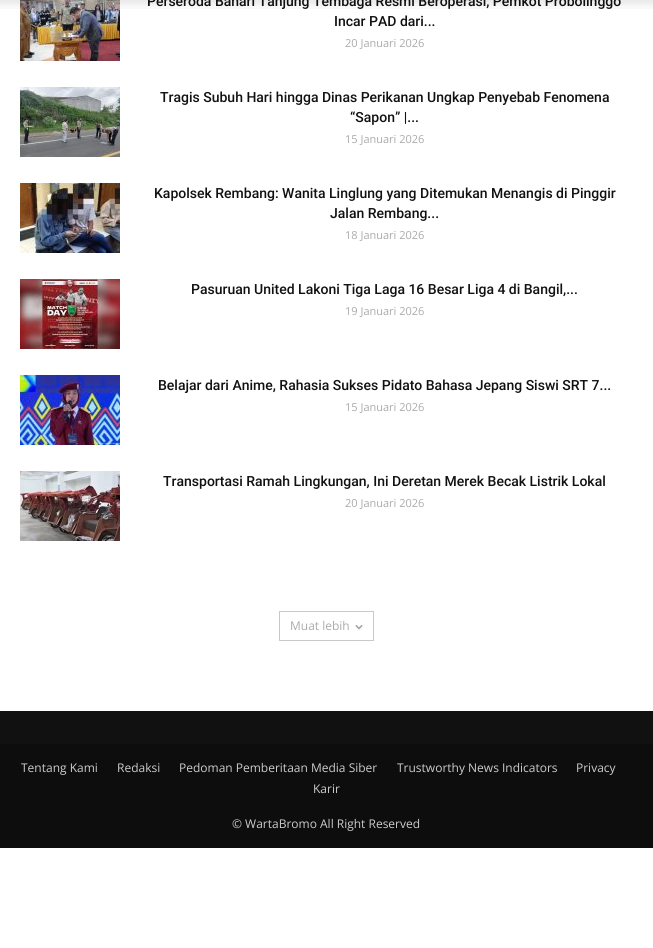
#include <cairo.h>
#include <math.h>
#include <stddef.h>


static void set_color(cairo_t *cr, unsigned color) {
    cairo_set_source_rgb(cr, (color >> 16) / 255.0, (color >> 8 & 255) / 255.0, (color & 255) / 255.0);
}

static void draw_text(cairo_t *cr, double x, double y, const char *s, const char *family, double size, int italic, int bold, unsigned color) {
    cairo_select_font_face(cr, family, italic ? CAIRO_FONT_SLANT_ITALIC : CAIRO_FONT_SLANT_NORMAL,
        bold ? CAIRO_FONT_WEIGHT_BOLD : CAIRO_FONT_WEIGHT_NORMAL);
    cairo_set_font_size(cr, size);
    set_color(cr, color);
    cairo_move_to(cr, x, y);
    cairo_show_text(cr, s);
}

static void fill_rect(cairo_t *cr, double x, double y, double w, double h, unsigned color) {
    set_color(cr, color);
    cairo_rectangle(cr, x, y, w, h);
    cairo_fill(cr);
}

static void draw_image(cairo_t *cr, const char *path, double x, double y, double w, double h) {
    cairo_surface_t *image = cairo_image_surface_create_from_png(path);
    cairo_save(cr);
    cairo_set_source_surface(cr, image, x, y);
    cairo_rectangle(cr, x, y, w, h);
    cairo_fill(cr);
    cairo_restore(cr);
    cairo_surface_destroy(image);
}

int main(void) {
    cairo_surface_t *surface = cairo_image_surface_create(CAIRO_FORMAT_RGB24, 653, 948);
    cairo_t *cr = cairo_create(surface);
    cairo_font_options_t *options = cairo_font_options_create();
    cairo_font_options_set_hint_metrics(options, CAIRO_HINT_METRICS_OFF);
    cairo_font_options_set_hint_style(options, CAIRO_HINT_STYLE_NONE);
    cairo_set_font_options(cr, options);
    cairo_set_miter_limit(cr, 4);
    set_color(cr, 0xFFFFFF);
    cairo_paint(cr);
    draw_image(cr, "assets/img2.png", 20, 0, 100, 61);
    draw_text(cr, 147, 6, "Perseroda Bahari Tanjung Tembaga Resmi Beroperasi, Pemkot Probolinggo", "Roboto Medium", 14, 0, 0, 0x111111);
    draw_image(cr, "assets/img1.png", 0, 0, 653, 9);
    draw_text(cr, 334, 26, "Incar PAD dari...", "Roboto Medium", 14, 0, 0, 0x111111);
    draw_text(cr, 345, 47, "20 Januari 2026", "Open Sans", 11, 0, 0, 0xAAAAAA);
    draw_image(cr, "assets/img3.png", 20, 87, 100, 70);
    draw_text(cr, 160, 102, "Tragis Subuh Hari hingga Dinas Perikanan Ungkap Penyebab Fenomena", "Roboto Medium", 14, 0, 0, 0x111111);
    draw_text(cr, 350, 122, "“Sapon” |...", "Roboto Medium", 14, 0, 0, 0x111111);
    draw_text(cr, 345, 143, "15 Januari 2026", "Open Sans", 11, 0, 0, 0xAAAAAA);
    draw_image(cr, "assets/img4.png", 20, 183, 100, 70);
    draw_text(cr, 154, 198, "Kapolsek Rembang: Wanita Linglung yang Ditemukan Menangis di Pinggir", "Roboto Medium", 14, 0, 0, 0x111111);
    draw_text(cr, 330, 218, "Jalan Rembang...", "Roboto Medium", 14, 0, 0, 0x111111);
    draw_text(cr, 345, 239, "18 Januari 2026", "Open Sans", 11, 0, 0, 0xAAAAAA);
    draw_image(cr, "assets/img5.png", 20, 279, 100, 70);
    draw_text(cr, 191, 294, "Pasuruan United Lakoni Tiga Laga 16 Besar Liga 4 di Bangil,...", "Roboto Medium", 14, 0, 0, 0x111111);
    draw_text(cr, 345, 315, "19 Januari 2026", "Open Sans", 11, 0, 0, 0xAAAAAA);
    draw_image(cr, "assets/img6.png", 20, 375, 100, 70);
    draw_text(cr, 158, 390, "Belajar dari Anime, Rahasia Sukses Pidato Bahasa Jepang Siswi SRT 7...", "Roboto Medium", 14, 0, 0, 0x111111);
    draw_text(cr, 345, 411, "15 Januari 2026", "Open Sans", 11, 0, 0, 0xAAAAAA);
    draw_image(cr, "assets/img7.png", 20, 471, 100, 70);
    draw_text(cr, 163, 486, "Transportasi Ramah Lingkungan, Ini Deretan Merek Becak Listrik Lokal", "Roboto Medium", 14, 0, 0, 0x111111);
    draw_text(cr, 345, 507, "20 Januari 2026", "Open Sans", 11, 0, 0, 0xAAAAAA);
    cairo_rectangle(cr, 279.5, 611.5, 94, 29);
    set_color(cr, 0xC9C9C9);
    cairo_set_line_width(cr, 1);
    cairo_stroke(cr);
    draw_text(cr, 290, 630, "Muat lebih", "Open Sans", 12, 0, 0, 0xAAAAAA);
    draw_image(cr, "assets/img8.png", 355, 625, 8, 5);
    fill_rect(cr, 0, 711, 653, 33, 0x111111);
    fill_rect(cr, 0, 744, 653, 104, 0x0D0D0D);
    draw_text(cr, 21, 772, "Tentang Kami", "Open Sans", 12, 0, 0, 0xCCCCCC);
    draw_text(cr, 117, 772, "Redaksi", "Open Sans", 12, 0, 0, 0xCCCCCC);
    draw_text(cr, 179, 772, "Pedoman Pemberitaan Media Siber", "Open Sans", 12, 0, 0, 0xCCCCCC);
    draw_text(cr, 397, 772, "Trustworthy News Indicators", "Open Sans", 12, 0, 0, 0xCCCCCC);
    draw_text(cr, 576, 772, "Privacy", "Open Sans", 12, 0, 0, 0xCCCCCC);
    draw_text(cr, 313, 793, "Karir", "Open Sans", 12, 0, 0, 0xCCCCCC);
    draw_text(cr, 232, 828, "© WartaBromo All Right Reserved", "Open Sans", 12, 0, 0, 0xCCCCCC);
    cairo_surface_write_to_png(surface, "output.png");
    cairo_font_options_destroy(options);
    cairo_destroy(cr);
    cairo_surface_destroy(surface);
    return 0;
}
